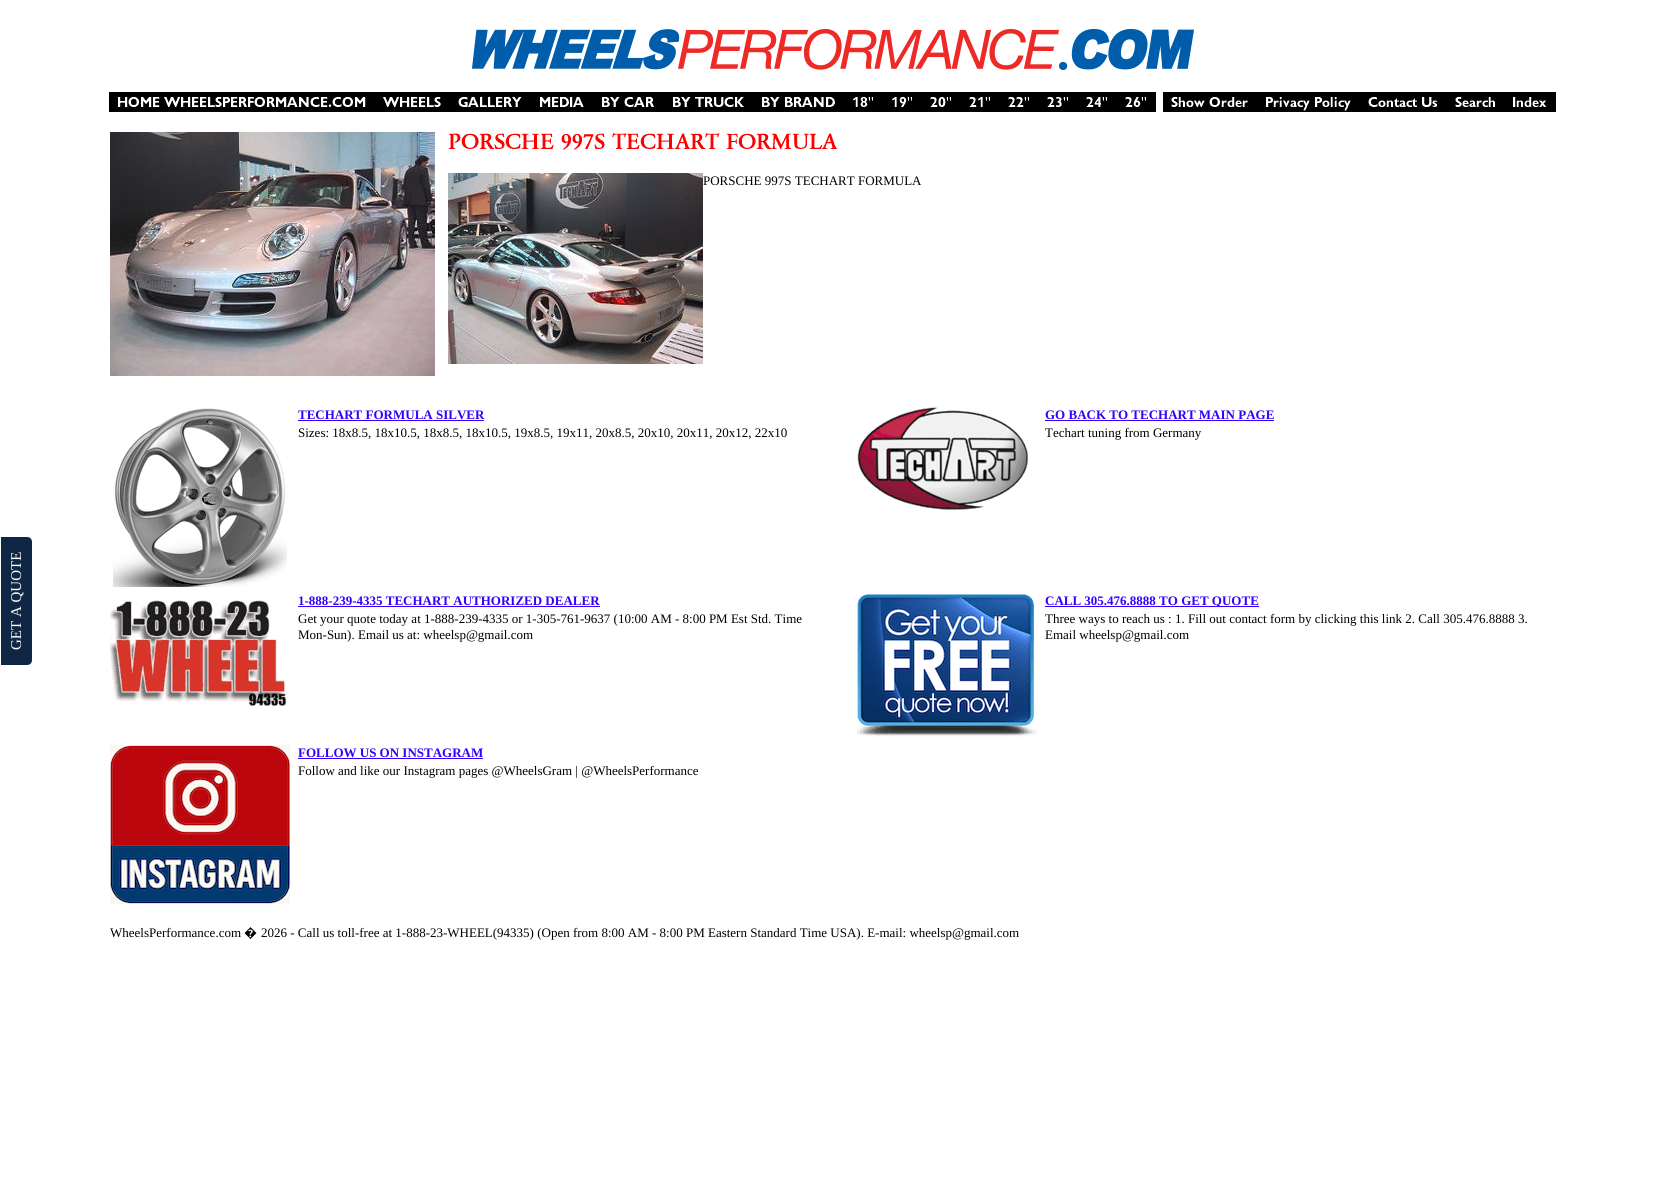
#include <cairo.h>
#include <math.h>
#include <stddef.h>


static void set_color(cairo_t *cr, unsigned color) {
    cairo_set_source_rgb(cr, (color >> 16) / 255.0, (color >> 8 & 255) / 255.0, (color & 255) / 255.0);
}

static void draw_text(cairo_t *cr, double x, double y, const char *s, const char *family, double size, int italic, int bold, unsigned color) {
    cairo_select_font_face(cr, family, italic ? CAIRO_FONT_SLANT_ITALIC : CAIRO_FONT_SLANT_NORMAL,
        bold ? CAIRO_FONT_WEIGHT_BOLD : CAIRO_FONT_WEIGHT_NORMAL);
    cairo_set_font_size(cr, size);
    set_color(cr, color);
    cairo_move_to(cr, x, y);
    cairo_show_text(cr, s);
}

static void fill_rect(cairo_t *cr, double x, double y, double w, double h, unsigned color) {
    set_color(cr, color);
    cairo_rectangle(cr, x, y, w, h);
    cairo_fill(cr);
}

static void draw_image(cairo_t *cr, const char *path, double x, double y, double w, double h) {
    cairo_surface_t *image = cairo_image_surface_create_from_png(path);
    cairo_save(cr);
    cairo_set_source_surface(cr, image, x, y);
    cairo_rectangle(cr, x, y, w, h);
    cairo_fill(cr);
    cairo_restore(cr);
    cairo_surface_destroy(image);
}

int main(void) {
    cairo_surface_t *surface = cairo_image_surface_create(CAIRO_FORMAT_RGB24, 1665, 1202);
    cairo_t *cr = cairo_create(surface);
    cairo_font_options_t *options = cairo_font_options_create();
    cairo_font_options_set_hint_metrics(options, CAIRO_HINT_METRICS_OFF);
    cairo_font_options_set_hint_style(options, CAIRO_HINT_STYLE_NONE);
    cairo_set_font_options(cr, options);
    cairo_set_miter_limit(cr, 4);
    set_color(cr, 0xFFFFFF);
    cairo_paint(cr);
    set_color(cr, 0x0F2744);
    cairo_new_path(cr);
    cairo_move_to(cr, 1, 665);
    cairo_line_to(cr, 1, 537);
    cairo_line_to(cr, 27, 537);
    cairo_curve_to(cr, 30, 537, 32, 539, 32, 542);
    cairo_line_to(cr, 32, 660);
    cairo_curve_to(cr, 32, 663, 30, 665, 27, 665);
    cairo_close_path(cr);
    cairo_fill(cr);
    cairo_save(cr);
    cairo_translate(cr, 21, 650);
    cairo_rotate(cr, -90 * M_PI / 180);
    draw_text(cr, 0, 0, "GET A QUOTE", "Liberation Serif", 15, 0, 0, 0xFFFFFF);
    cairo_restore(cr);
    draw_image(cr, "assets/img1.png", 472, 29, 722, 41);
    draw_image(cr, "assets/img2.png", 109, 92, 1447, 20);
    draw_image(cr, "assets/img3.png", 110, 132, 325, 244);
    draw_image(cr, "assets/img4.png", 448, 133, 390, 17);
    draw_image(cr, "assets/img5.png", 448, 173, 255, 191);
    draw_text(cr, 703, 185, "PORSCHE 997S TECHART FORMULA", "Liberation Serif", 13, 0, 0, 0x000000);
    draw_image(cr, "assets/img6.png", 113, 408, 174, 179);
    draw_text(cr, 298, 419, "TECHART FORMULA SILVER", "Liberation Serif", 13, 0, 1, 0x3300FF);
    fill_rect(cr, 298, 420, 186, 1, 0x3300FF);
    draw_text(cr, 298, 437, "Sizes: 18x8.5, 18x10.5, 18x8.5, 18x10.5, 19x8.5, 19x11, 20x8.5, 20x10, 20x11, 20x12, 22x10", "Liberation Serif", 13, 0, 0, 0x000000);
    draw_image(cr, "assets/img7.png", 857, 407, 171, 103);
    draw_text(cr, 1045, 419, "GO BACK TO TECHART MAIN PAGE", "Liberation Serif", 13, 0, 1, 0x3300FF);
    fill_rect(cr, 1045, 420, 229, 1, 0x3300FF);
    draw_text(cr, 1045, 437, "Techart tuning from Germany", "Liberation Serif", 13, 0, 0, 0x000000);
    draw_image(cr, "assets/img8.png", 110, 600, 177, 106);
    draw_text(cr, 298, 605, "1-888-239-4335 TECHART AUTHORIZED DEALER", "Liberation Serif", 13, 0, 1, 0x3300FF);
    fill_rect(cr, 298, 606, 302, 1, 0x3300FF);
    draw_text(cr, 298, 623, "Get your quote today at 1-888-239-4335 or 1-305-761-9637 (10:00 AM - 8:00 PM Est Std. Time", "Liberation Serif", 13, 0, 0, 0x000000);
    draw_text(cr, 298, 639, "Mon-Sun). Email us at: wheelsp@gmail.com", "Liberation Serif", 13, 0, 0, 0x000000);
    draw_image(cr, "assets/img9.png", 857, 594, 180, 143);
    fill_rect(cr, 1045, 606, 214, 1, 0x3300FF);
    draw_text(cr, 1045, 605, "CALL 305.476.8888 TO GET QUOTE", "Liberation Serif", 13, 0, 1, 0x3300FF);
    draw_text(cr, 1045, 623, "Three ways to reach us : 1. Fill out contact form by clicking this link 2. Call 305.476.8888 3.", "Liberation Serif", 13, 0, 0, 0x000000);
    draw_text(cr, 1045, 639, "Email wheelsp@gmail.com", "Liberation Serif", 13, 0, 0, 0x000000);
    draw_image(cr, "assets/img10.png", 110, 745, 180, 159);
    draw_text(cr, 298, 757, "FOLLOW US ON INSTAGRAM", "Liberation Serif", 13, 0, 1, 0x3300FF);
    fill_rect(cr, 298, 758, 185, 1, 0x3300FF);
    draw_text(cr, 298, 775, "Follow and like our Instagram pages @WheelsGram | @WheelsPerformance", "Liberation Serif", 13, 0, 0, 0x000000);
    draw_text(cr, 110, 937, "WheelsPerformance.com", "Liberation Serif", 13, 0, 0, 0x000000);
    draw_text(cr, 244, 937, "�", "Noto Sans", 13, 0, 0, 0x000000);
    draw_text(cr, 261, 937, "2026 - Call us toll-free at 1-888-23-WHEEL(94335) (Open from 8:00 AM - 8:00 PM Eastern Standard Time USA). E-mail: wheelsp@gmail.com", "Liberation Serif", 13, 0, 0, 0x000000);
    cairo_surface_write_to_png(surface, "output.png");
    cairo_font_options_destroy(options);
    cairo_destroy(cr);
    cairo_surface_destroy(surface);
    return 0;
}
